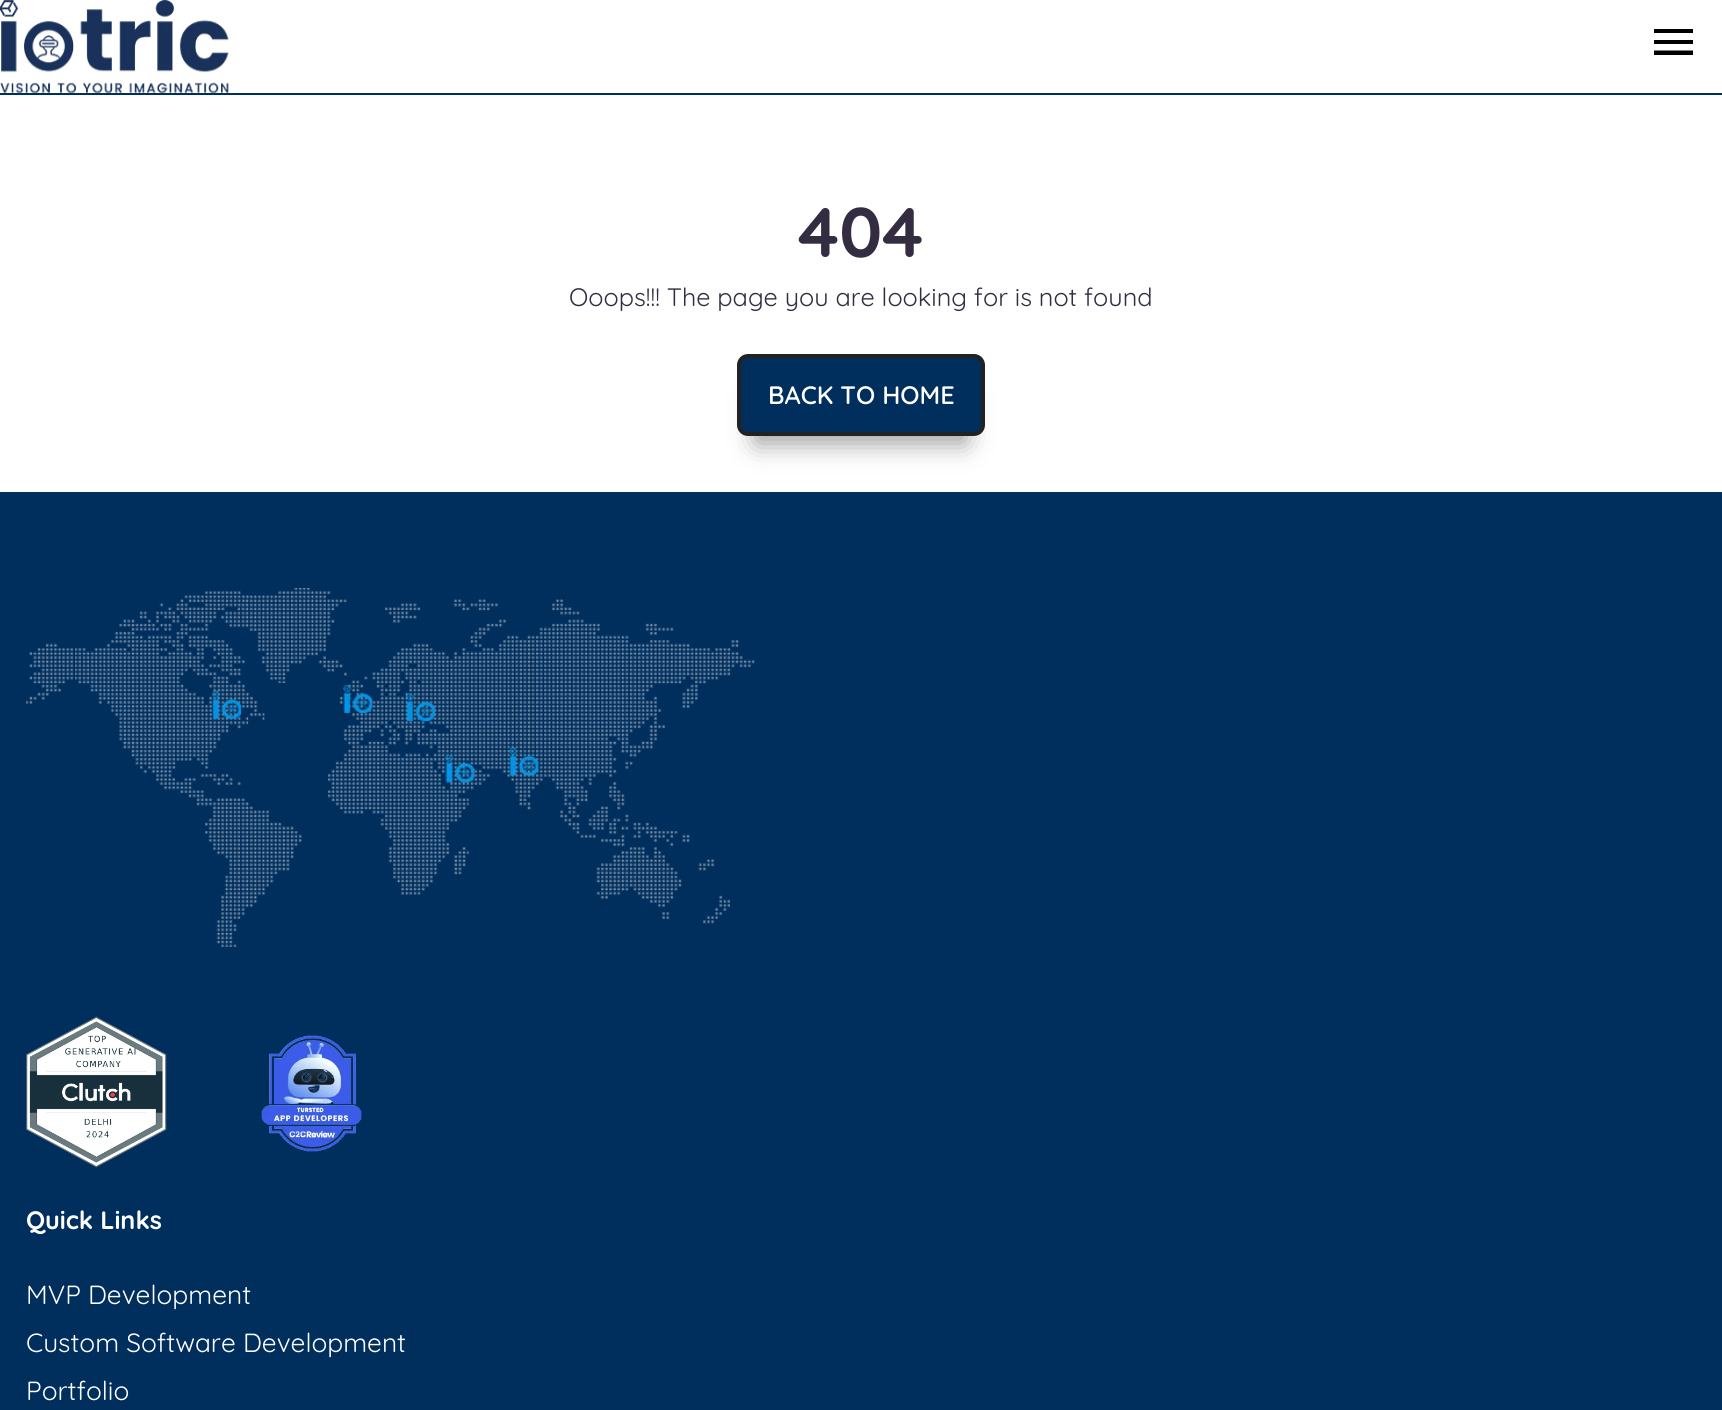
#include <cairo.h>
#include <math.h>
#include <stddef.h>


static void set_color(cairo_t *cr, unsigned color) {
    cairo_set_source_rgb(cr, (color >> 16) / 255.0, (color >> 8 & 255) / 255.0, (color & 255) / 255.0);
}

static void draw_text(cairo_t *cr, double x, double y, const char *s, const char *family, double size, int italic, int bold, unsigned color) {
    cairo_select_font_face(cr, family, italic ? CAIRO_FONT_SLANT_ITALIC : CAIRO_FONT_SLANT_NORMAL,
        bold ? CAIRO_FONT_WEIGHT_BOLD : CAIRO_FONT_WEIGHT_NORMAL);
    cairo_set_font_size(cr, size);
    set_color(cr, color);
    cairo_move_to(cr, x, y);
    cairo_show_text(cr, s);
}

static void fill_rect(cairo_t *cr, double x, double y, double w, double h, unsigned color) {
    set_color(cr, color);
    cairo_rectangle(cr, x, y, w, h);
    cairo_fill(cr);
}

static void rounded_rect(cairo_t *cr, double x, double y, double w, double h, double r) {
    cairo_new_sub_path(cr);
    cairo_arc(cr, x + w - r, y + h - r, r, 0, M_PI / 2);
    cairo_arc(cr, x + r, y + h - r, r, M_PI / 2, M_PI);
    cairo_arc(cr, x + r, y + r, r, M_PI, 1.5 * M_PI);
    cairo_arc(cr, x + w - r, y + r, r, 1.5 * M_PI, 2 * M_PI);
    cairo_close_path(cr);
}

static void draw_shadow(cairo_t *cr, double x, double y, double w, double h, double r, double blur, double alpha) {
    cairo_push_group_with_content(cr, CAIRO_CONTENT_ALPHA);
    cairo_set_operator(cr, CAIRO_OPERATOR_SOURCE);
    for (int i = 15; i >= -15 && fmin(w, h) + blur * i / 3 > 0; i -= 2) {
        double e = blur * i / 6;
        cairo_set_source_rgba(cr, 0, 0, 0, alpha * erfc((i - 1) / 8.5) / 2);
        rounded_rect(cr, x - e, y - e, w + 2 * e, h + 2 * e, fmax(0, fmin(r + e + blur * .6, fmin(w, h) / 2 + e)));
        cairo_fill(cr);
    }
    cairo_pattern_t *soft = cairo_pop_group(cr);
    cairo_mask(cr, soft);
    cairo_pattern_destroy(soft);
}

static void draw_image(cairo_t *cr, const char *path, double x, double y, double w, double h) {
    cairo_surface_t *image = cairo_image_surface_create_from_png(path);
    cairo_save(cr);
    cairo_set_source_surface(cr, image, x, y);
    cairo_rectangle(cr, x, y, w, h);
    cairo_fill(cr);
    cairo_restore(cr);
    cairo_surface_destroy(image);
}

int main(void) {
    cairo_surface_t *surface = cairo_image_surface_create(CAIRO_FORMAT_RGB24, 1722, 1410);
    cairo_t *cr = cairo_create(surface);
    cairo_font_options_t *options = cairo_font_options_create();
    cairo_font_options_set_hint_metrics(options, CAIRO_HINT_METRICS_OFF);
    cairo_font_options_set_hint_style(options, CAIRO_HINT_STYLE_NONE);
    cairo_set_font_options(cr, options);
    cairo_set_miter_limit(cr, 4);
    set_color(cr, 0xFFFFFF);
    cairo_paint(cr);
    fill_rect(cr, 0, 93, 1722, 2, 0x002E5D);
    draw_image(cr, "assets/img1.png", 0, 0, 229, 93);
    set_color(cr, 0x000000);
    cairo_new_path(cr);
    cairo_move_to(cr, 1654, 55);
    cairo_line_to(cr, 1654, 50.5);
    cairo_line_to(cr, 1693, 50.5);
    cairo_line_to(cr, 1693, 55);
    cairo_close_path(cr);
    cairo_move_to(cr, 1654, 44);
    cairo_line_to(cr, 1654, 40);
    cairo_line_to(cr, 1693, 40);
    cairo_line_to(cr, 1693, 44);
    cairo_close_path(cr);
    cairo_move_to(cr, 1654, 29);
    cairo_line_to(cr, 1693, 29);
    cairo_line_to(cr, 1693, 33);
    cairo_line_to(cr, 1654, 33);
    cairo_close_path(cr);
    cairo_fill(cr);
    draw_text(cr, 798, 257, "404", "Quicksand", 70, 0, 1, 0x342D42);
    draw_text(cr, 569, 306, "Ooops!!! The page you are looking for is not found", "Quicksand", 25.2, 0, 0, 0x342D42);
    set_color(cr, 0x000000);
    draw_shadow(cr, 756, 399, 210, 44, 0, 13, 0.4);
    set_color(cr, 0x002E5D);
    rounded_rect(cr, 739, 356, 244, 78, 9);
    cairo_fill_preserve(cr);
    set_color(cr, 0x222222);
    cairo_set_line_width(cr, 4);
    cairo_stroke(cr);
    draw_text(cr, 768, 404, "BACK TO HOME", "Quicksand SemiBold", 25.2, 0, 0, 0xFFFFFF);
    fill_rect(cr, 0, 492, 1722, 918, 0x002E5D);
    draw_image(cr, "assets/img2.png", 26, 588, 729, 359);
    draw_image(cr, "assets/img3.png", 26, 1016, 141, 152);
    draw_image(cr, "assets/img4.png", 261, 1035, 101, 117);
    draw_text(cr, 26, 1229, "Quick Links", "Quicksand", 25.2, 0, 1, 0xFFFFFF);
    draw_text(cr, 26, 1304, "MVP Development", "Quicksand", 26.25, 0, 0, 0xFFFFFF);
    draw_text(cr, 26, 1352, "Custom Software Development", "Quicksand", 26.25, 0, 0, 0xFFFFFF);
    draw_text(cr, 26, 1400, "Portfolio", "Quicksand", 26.25, 0, 0, 0xFFFFFF);
    cairo_surface_write_to_png(surface, "output.png");
    cairo_font_options_destroy(options);
    cairo_destroy(cr);
    cairo_surface_destroy(surface);
    return 0;
}
